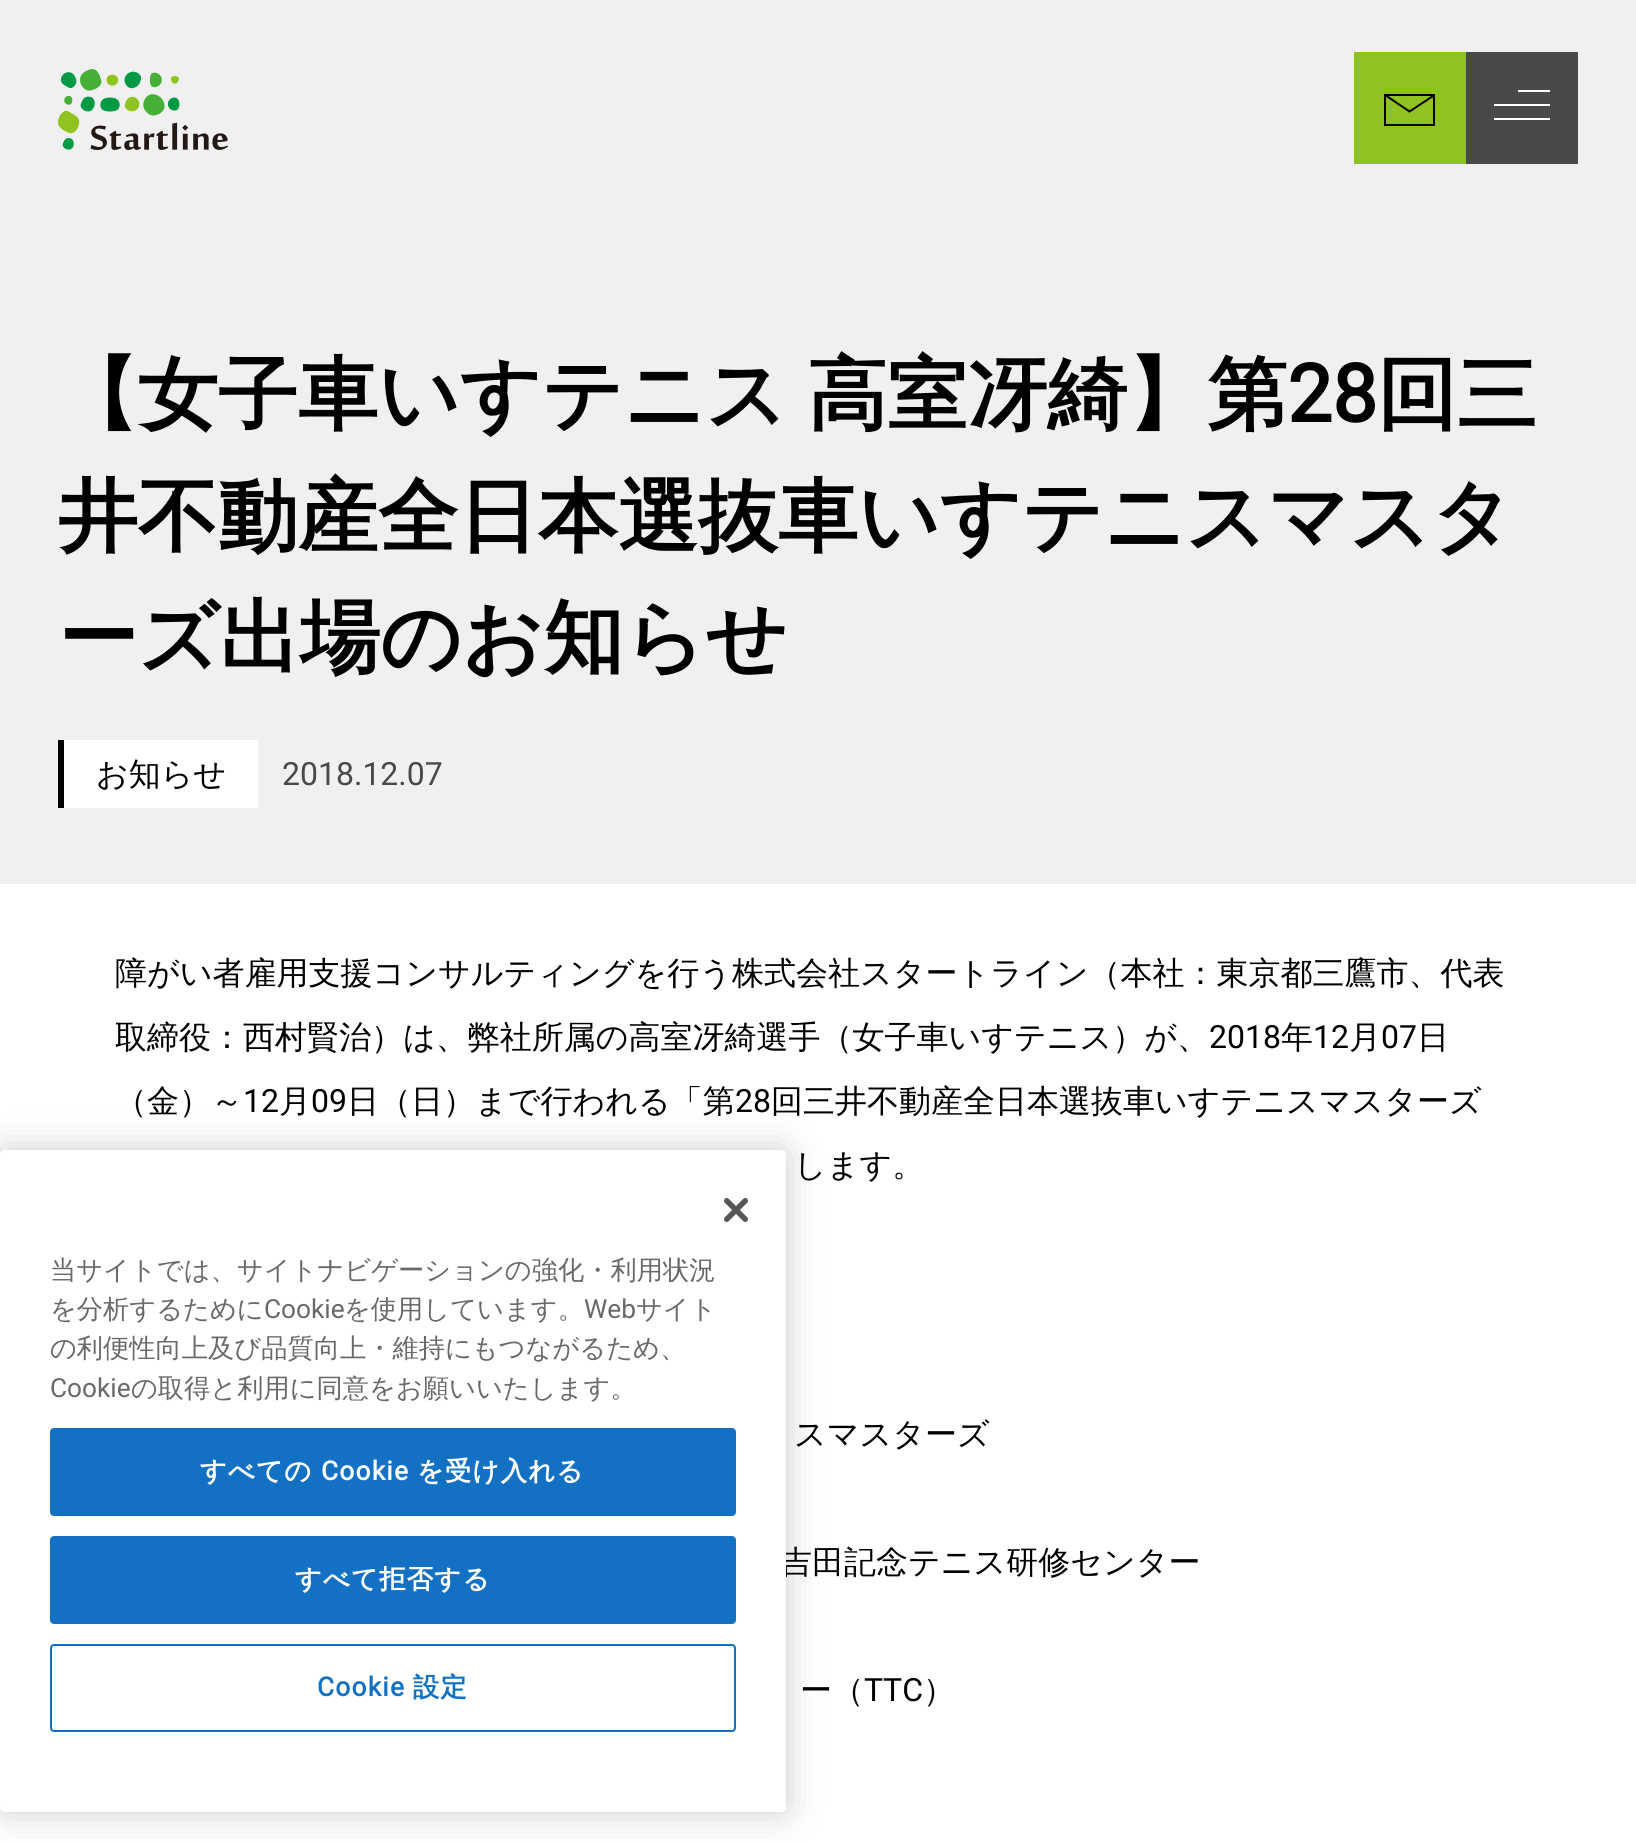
#include <cairo.h>
#include <math.h>
#include <stddef.h>


static void set_color(cairo_t *cr, unsigned color) {
    cairo_set_source_rgb(cr, (color >> 16) / 255.0, (color >> 8 & 255) / 255.0, (color & 255) / 255.0);
}

static void draw_text(cairo_t *cr, double x, double y, const char *s, const char *family, double size, int italic, int bold, unsigned color) {
    cairo_select_font_face(cr, family, italic ? CAIRO_FONT_SLANT_ITALIC : CAIRO_FONT_SLANT_NORMAL,
        bold ? CAIRO_FONT_WEIGHT_BOLD : CAIRO_FONT_WEIGHT_NORMAL);
    cairo_set_font_size(cr, size);
    set_color(cr, color);
    cairo_move_to(cr, x, y);
    cairo_show_text(cr, s);
}

static void draw_spaced(cairo_t *cr, double x, double y, const char *s, double letter, double word) {
    cairo_move_to(cr, x, y);
    while (*s) {
        char ch[5] = {0};
        int n = 0;
        do ch[n++] = *s++; while ((*s & 0xC0) == 0x80);
        cairo_show_text(cr, ch);
        cairo_rel_move_to(cr, letter + word * (*ch == ' '), 0);
    }
}

static void fill_rect(cairo_t *cr, double x, double y, double w, double h, unsigned color) {
    set_color(cr, color);
    cairo_rectangle(cr, x, y, w, h);
    cairo_fill(cr);
}

static void rounded_rect(cairo_t *cr, double x, double y, double w, double h, double r) {
    cairo_new_sub_path(cr);
    cairo_arc(cr, x + w - r, y + h - r, r, 0, M_PI / 2);
    cairo_arc(cr, x + r, y + h - r, r, M_PI / 2, M_PI);
    cairo_arc(cr, x + r, y + r, r, M_PI, 1.5 * M_PI);
    cairo_arc(cr, x + w - r, y + r, r, 1.5 * M_PI, 2 * M_PI);
    cairo_close_path(cr);
}

static void draw_shadow(cairo_t *cr, double x, double y, double w, double h, double r, double blur, double alpha) {
    cairo_push_group_with_content(cr, CAIRO_CONTENT_ALPHA);
    cairo_set_operator(cr, CAIRO_OPERATOR_SOURCE);
    for (int i = 15; i >= -15 && fmin(w, h) + blur * i / 3 > 0; i -= 2) {
        double e = blur * i / 6;
        cairo_set_source_rgba(cr, 0, 0, 0, alpha * erfc((i - 1) / 8.5) / 2);
        rounded_rect(cr, x - e, y - e, w + 2 * e, h + 2 * e, fmax(0, fmin(r + e + blur * .6, fmin(w, h) / 2 + e)));
        cairo_fill(cr);
    }
    cairo_pattern_t *soft = cairo_pop_group(cr);
    cairo_mask(cr, soft);
    cairo_pattern_destroy(soft);
}

static void draw_image(cairo_t *cr, const char *path, double x, double y, double w, double h) {
    cairo_surface_t *image = cairo_image_surface_create_from_png(path);
    cairo_save(cr);
    cairo_set_source_surface(cr, image, x, y);
    cairo_rectangle(cr, x, y, w, h);
    cairo_fill(cr);
    cairo_restore(cr);
    cairo_surface_destroy(image);
}

int main(void) {
    cairo_surface_t *surface = cairo_image_surface_create(CAIRO_FORMAT_RGB24, 1636, 1843);
    cairo_t *cr = cairo_create(surface);
    cairo_font_options_t *options = cairo_font_options_create();
    cairo_font_options_set_hint_metrics(options, CAIRO_HINT_METRICS_OFF);
    cairo_font_options_set_hint_style(options, CAIRO_HINT_STYLE_NONE);
    cairo_set_font_options(cr, options);
    cairo_set_miter_limit(cr, 4);
    set_color(cr, 0xFFFFFF);
    cairo_paint(cr);
    fill_rect(cr, 0, 0, 1636, 884, 0xF0F0F0);
    draw_image(cr, "assets/img1.png", 58, 69, 170, 81);
    fill_rect(cr, 1354, 52, 112, 112, 0x8FC31F);
    cairo_rectangle(cr, 1385, 95, 49, 30);
    set_color(cr, 0x000000);
    cairo_stroke(cr);
    cairo_new_path(cr);
    cairo_move_to(cr, 1385, 95);
    cairo_line_to(cr, 1409.5, 111.5);
    cairo_line_to(cr, 1434.5, 95);
    cairo_stroke(cr);
    fill_rect(cr, 1466, 52, 112, 112, 0x494949);
    fill_rect(cr, 1518, 90, 32, 2, 0xFFFFFF);
    fill_rect(cr, 1494, 104, 56, 2, 0xFFFFFF);
    fill_rect(cr, 1494, 118, 56, 2, 0xFFFFFF);
    cairo_select_font_face(cr, "WenQuanYi Zen Hei", CAIRO_FONT_SLANT_NORMAL, CAIRO_FONT_WEIGHT_BOLD);
    cairo_set_font_size(cr, 80);
    set_color(cr, 0x000000);
    draw_spaced(cr, 58, 422, "【女子車いすテニス 高室冴綺】第", 0, -4);
    draw_text(cr, 1287, 422, "28", "Roboto", 80, 0, 1, 0x000000);
    draw_text(cr, 1377, 422, "回三", "WenQuanYi Zen Hei", 80, 0, 1, 0x000000);
    draw_text(cr, 58, 544, "井不動産全日本選抜車いすテニスマスタ", "WenQuanYi Zen Hei", 80, 0, 1, 0x000000);
    draw_text(cr, 58, 665, "ーズ出場のお知らせ", "WenQuanYi Zen Hei", 80, 0, 1, 0x000000);
    fill_rect(cr, 64, 740, 194, 68, 0xFFFFFF);
    fill_rect(cr, 58, 740, 6, 68, 0x000000);
    draw_text(cr, 96, 785, "お知らせ", "WenQuanYi Zen Hei Medium", 32, 0, 0, 0x000000);
    draw_text(cr, 282, 785, "2018.12.07", "Roboto", 32, 0, 0, 0x494949);
    draw_text(cr, 115, 984, "障がい者雇用支援コンサルティングを行う株式会社スタートライン（本社：東京都三鷹市、代表", "WenQuanYi Zen Hei Medium", 32, 0, 0, 0x000000);
    draw_text(cr, 115, 1048, "取締役：西村賢治）は、弊社所属の高室冴綺選手（女子車いすテニス）が、", "WenQuanYi Zen Hei Medium", 32, 0, 0, 0x000000);
    draw_text(cr, 1209, 1048, "2018", "Roboto", 32, 0, 0, 0x000000);
    draw_text(cr, 1281, 1048, "年", "WenQuanYi Zen Hei Medium", 32, 0, 0, 0x000000);
    draw_text(cr, 1313, 1048, "12", "Roboto", 32, 0, 0, 0x000000);
    draw_text(cr, 1349, 1048, "月", "WenQuanYi Zen Hei Medium", 32, 0, 0, 0x000000);
    draw_text(cr, 1381, 1048, "07", "Roboto", 32, 0, 0, 0x000000);
    draw_text(cr, 1417, 1048, "日", "WenQuanYi Zen Hei Medium", 32, 0, 0, 0x000000);
    draw_text(cr, 115, 1112, "（金）～", "WenQuanYi Zen Hei Medium", 32, 0, 0, 0x000000);
    draw_text(cr, 243, 1112, "12", "Roboto", 32, 0, 0, 0x000000);
    draw_text(cr, 279, 1112, "月", "WenQuanYi Zen Hei Medium", 32, 0, 0, 0x000000);
    draw_text(cr, 311, 1112, "09", "Roboto", 32, 0, 0, 0x000000);
    draw_text(cr, 347, 1112, "日（日）まで行われる「第", "WenQuanYi Zen Hei Medium", 32, 0, 0, 0x000000);
    draw_text(cr, 735, 1112, "28", "Roboto", 32, 0, 0, 0x000000);
    draw_text(cr, 771, 1112, "回三井不動産全日本選抜車いすテニスマスターズ", "WenQuanYi Zen Hei Medium", 32, 0, 0, 0x000000);
    draw_text(cr, 794, 1176, "します。", "WenQuanYi Zen Hei Medium", 32, 0, 0, 0x000000);
    draw_text(cr, 794, 1445, "スマスターズ", "WenQuanYi Zen Hei Medium", 32, 0, 0, 0x000000);
    draw_spaced(cr, 780, 1573, "吉田記念テニス研修センター", 0, -2);
    draw_spaced(cr, 800, 1701, "ー（", 0, -2);
    draw_text(cr, 864, 1701, "TTC", "Roboto", 32, 0, 0, 0x000000);
    draw_text(cr, 923, 1701, "）", "WenQuanYi Zen Hei Medium", 32, 0, 0, 0x000000);
    set_color(cr, 0x000000);
    draw_shadow(cr, 0, 1150, 786, 662, 5, 18, 0.2);
    set_color(cr, 0xFFFFFF);
    rounded_rect(cr, 0, 1150, 786, 662, 5);
    cairo_fill(cr);
    draw_image(cr, "assets/img2.png", 724, 1198, 24, 24);
    draw_text(cr, 50, 1279, "当サイトでは、サイトナビゲーションの強化・利用状況", "WenQuanYi Zen Hei Medium", 26.25, 0, 0, 0x696969);
    draw_text(cr, 50, 1318, "を分析するために", "WenQuanYi Zen Hei Medium", 26.25, 0, 0, 0x696969);
    draw_text(cr, 264, 1318, "Cookie", "Roboto", 26.25, 0, 0, 0x696969);
    draw_text(cr, 344, 1318, "を使用しています。", "WenQuanYi Zen Hei Medium", 26.25, 0, 0, 0x696969);
    draw_text(cr, 584, 1318, "Web", "Roboto", 26.25, 0, 0, 0x696969);
    draw_text(cr, 636, 1318, "サイト", "WenQuanYi Zen Hei Medium", 26.25, 0, 0, 0x696969);
    draw_text(cr, 50, 1357, "の利便性向上及び品質向上・維持にもつながるため、", "WenQuanYi Zen Hei Medium", 26.25, 0, 0, 0x696969);
    draw_text(cr, 50, 1397, "Cookie", "Roboto", 26.25, 0, 0, 0x696969);
    draw_text(cr, 131, 1397, "の取得と利用に同意をお願いいたします。", "WenQuanYi Zen Hei Medium", 26.25, 0, 0, 0x696969);
    set_color(cr, 0x1371C3);
    rounded_rect(cr, 51, 1429, 684, 86, 3);
    cairo_fill_preserve(cr);
    cairo_stroke(cr);
    cairo_select_font_face(cr, "WenQuanYi Zen Hei", CAIRO_FONT_SLANT_NORMAL, CAIRO_FONT_WEIGHT_BOLD);
    set_color(cr, 0xFFFFFF);
    draw_spaced(cr, 200, 1480, "すべての", 1.25, 0);
    cairo_select_font_face(cr, "Roboto", CAIRO_FONT_SLANT_NORMAL, CAIRO_FONT_WEIGHT_BOLD);
    draw_spaced(cr, 321, 1480, "Cookie", 1.25, 0);
    cairo_select_font_face(cr, "WenQuanYi Zen Hei", CAIRO_FONT_SLANT_NORMAL, CAIRO_FONT_WEIGHT_BOLD);
    draw_spaced(cr, 417, 1480, "を受け入れる", 1.25, 0);
    set_color(cr, 0x1371C3);
    rounded_rect(cr, 51, 1537, 684, 86, 3);
    cairo_fill_preserve(cr);
    cairo_stroke(cr);
    set_color(cr, 0xFFFFFF);
    draw_spaced(cr, 295, 1588, "すべて拒否する", 1.25, 0);
    rounded_rect(cr, 51, 1645, 684, 86, 3);
    set_color(cr, 0x1371C3);
    cairo_stroke(cr);
    cairo_select_font_face(cr, "Roboto", CAIRO_FONT_SLANT_NORMAL, CAIRO_FONT_WEIGHT_BOLD);
    draw_spaced(cr, 317, 1696, "Cookie", 1.25, 0);
    cairo_select_font_face(cr, "WenQuanYi Zen Hei", CAIRO_FONT_SLANT_NORMAL, CAIRO_FONT_WEIGHT_BOLD);
    draw_spaced(cr, 413, 1696, "設定", 1.25, 0);
    cairo_surface_write_to_png(surface, "output.png");
    cairo_font_options_destroy(options);
    cairo_destroy(cr);
    cairo_surface_destroy(surface);
    return 0;
}
